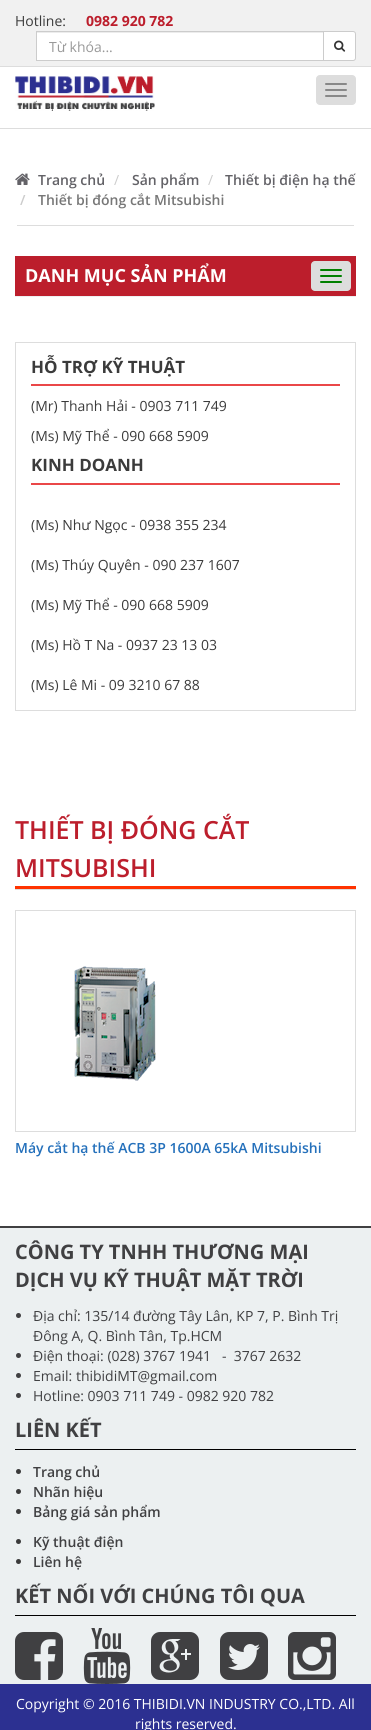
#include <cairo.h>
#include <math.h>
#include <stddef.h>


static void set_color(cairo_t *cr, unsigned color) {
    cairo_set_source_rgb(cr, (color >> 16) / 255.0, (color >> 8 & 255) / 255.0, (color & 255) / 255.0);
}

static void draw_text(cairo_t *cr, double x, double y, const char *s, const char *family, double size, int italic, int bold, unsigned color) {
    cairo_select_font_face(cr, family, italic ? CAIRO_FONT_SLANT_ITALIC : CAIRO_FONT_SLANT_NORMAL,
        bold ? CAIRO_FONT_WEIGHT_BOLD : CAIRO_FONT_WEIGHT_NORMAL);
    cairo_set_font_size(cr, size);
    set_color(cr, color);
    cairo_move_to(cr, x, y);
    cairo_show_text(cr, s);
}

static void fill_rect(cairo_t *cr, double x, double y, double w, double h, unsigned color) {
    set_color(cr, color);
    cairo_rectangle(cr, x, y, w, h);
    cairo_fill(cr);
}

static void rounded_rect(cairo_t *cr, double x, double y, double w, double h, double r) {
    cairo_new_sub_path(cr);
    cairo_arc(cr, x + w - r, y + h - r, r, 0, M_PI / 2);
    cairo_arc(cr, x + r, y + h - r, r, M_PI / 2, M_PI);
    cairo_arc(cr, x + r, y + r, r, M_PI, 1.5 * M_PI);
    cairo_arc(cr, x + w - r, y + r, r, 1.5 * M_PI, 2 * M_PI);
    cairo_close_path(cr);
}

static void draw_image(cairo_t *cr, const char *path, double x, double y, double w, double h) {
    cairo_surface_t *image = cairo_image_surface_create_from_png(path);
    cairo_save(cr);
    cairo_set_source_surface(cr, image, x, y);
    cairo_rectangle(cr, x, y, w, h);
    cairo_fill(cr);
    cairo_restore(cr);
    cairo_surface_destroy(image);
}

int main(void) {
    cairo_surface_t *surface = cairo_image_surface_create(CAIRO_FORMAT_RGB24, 371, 1730);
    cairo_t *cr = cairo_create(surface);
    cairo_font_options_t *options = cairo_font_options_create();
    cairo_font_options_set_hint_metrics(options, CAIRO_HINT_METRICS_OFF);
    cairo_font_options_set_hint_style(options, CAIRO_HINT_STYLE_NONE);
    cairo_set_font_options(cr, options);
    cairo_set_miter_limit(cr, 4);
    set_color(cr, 0xFFFFFF);
    cairo_paint(cr);
    fill_rect(cr, 0, 128, 371, 1, 0xDDDDDD);
    fill_rect(cr, 0, 0, 371, 66, 0xF1F1F1);
    fill_rect(cr, 0, 66, 371, 1, 0xDDDDDD);
    draw_text(cr, 15, 26, "Hotline:", "Open Sans", 14, 0, 0, 0x3B3B3B);
    draw_text(cr, 86, 26, "0982 920 782", "Open Sans", 14, 0, 1, 0xBC1E2C);
    fill_rect(cr, 37, 33, 286, 27, 0xFFFFFF);
    fill_rect(cr, 37, 32, 286, 1, 0xECECEC);
    cairo_rectangle(cr, 36.5, 31.5, 287, 29);
    set_color(cr, 0xCCCCCC);
    cairo_set_line_width(cr, 1);
    cairo_stroke(cr);
    draw_text(cr, 49, 52, "Từ khóa...", "Open Sans", 14, 0, 0, 0x999999);
    set_color(cr, 0xFFFFFF);
    cairo_new_path(cr);
    cairo_move_to(cr, 323.5, 31.5);
    cairo_line_to(cr, 353, 31.5);
    cairo_curve_to(cr, 354.5, 31.5, 355.5, 32.5, 355.5, 34);
    cairo_line_to(cr, 355.5, 58);
    cairo_curve_to(cr, 355.5, 59.5, 354.5, 60.5, 353, 60.5);
    cairo_line_to(cr, 323.5, 60.5);
    cairo_close_path(cr);
    cairo_fill_preserve(cr);
    set_color(cr, 0xCCCCCC);
    cairo_stroke(cr);
    draw_image(cr, "assets/img1.png", 334, 40, 12, 12);
    draw_image(cr, "assets/img2.png", 15, 76, 140, 35);
    set_color(cr, 0xDDDDDD);
    rounded_rect(cr, 316.5, 75.5, 39, 29, 3.5);
    cairo_fill_preserve(cr);
    cairo_stroke(cr);
    set_color(cr, 0x888888);
    rounded_rect(cr, 325, 83, 22, 2, 1);
    cairo_fill(cr);
    rounded_rect(cr, 325, 89, 22, 2, 1);
    cairo_fill(cr);
    rounded_rect(cr, 325, 95, 22, 2, 1);
    cairo_fill(cr);
    fill_rect(cr, 17, 225, 337, 1, 0xDDDDDD);
    draw_image(cr, "assets/img3.png", 15, 173, 15, 12);
    draw_text(cr, 38, 185, "Trang chủ", "Open Sans SemiBold", 14, 0, 0, 0x636267);
    draw_text(cr, 114, 185, "/", "Open Sans", 14, 0, 0, 0xCCCCCC);
    draw_text(cr, 132, 185, "Sản phẩm", "Open Sans SemiBold", 14, 0, 0, 0x636267);
    draw_text(cr, 208, 185, "/", "Open Sans", 14, 0, 0, 0xCCCCCC);
    draw_text(cr, 225, 185, "Thiết bị điện hạ thế", "Open Sans SemiBold", 14, 0, 0, 0x636267);
    draw_text(cr, 20, 205, "/", "Open Sans SemiBold", 14, 0, 0, 0xCCCCCC);
    draw_text(cr, 38, 205, "Thiết bị đóng cắt Mitsubishi", "Open Sans SemiBold", 14, 0, 0, 0x777777);
    fill_rect(cr, 15, 256, 341, 40, 0xBC1E2C);
    fill_rect(cr, 15, 296, 341, 1, 0xECF0F1);
    draw_text(cr, 25, 282, "DANH MỤC SẢN PHẨM", "Open Sans", 18, 0, 1, 0xFFFFFF);
    set_color(cr, 0xDDDDDD);
    rounded_rect(cr, 311, 261, 40, 30, 4);
    cairo_fill(cr);
    set_color(cr, 0x008000);
    rounded_rect(cr, 320, 269, 22, 2, 1);
    cairo_fill(cr);
    rounded_rect(cr, 320, 275, 22, 2, 1);
    cairo_fill(cr);
    rounded_rect(cr, 320, 281, 22, 2, 1);
    cairo_fill(cr);
    cairo_rectangle(cr, 15.5, 342.5, 340, 368);
    set_color(cr, 0xDDDDDD);
    cairo_stroke(cr);
    fill_rect(cr, 31, 384, 309, 2, 0xEA4748);
    draw_text(cr, 31, 373, "HỖ TRỢ KỸ THUẬT", "Open Sans", 17, 0, 1, 0x3B3B3B);
    draw_text(cr, 31, 411, "(Mr) Thanh Hải - 0903 711 749", "Open Sans", 14, 0, 0, 0x3B3B3B);
    draw_text(cr, 31, 441, "(Ms) Mỹ Thể - 090 668 5909", "Open Sans", 14, 0, 0, 0x3B3B3B);
    fill_rect(cr, 31, 483, 309, 2, 0xEA4748);
    draw_text(cr, 31, 471, "KINH DOANH", "Open Sans", 17, 0, 1, 0x3B3B3B);
    draw_text(cr, 31, 530, "(Ms) Như Ngọc - 0938 355 234", "Open Sans", 14, 0, 0, 0x3B3B3B);
    draw_text(cr, 31, 570, "(Ms) Thúy Quyên - 090 237 1607", "Open Sans", 14, 0, 0, 0x3B3B3B);
    draw_text(cr, 31, 610, "(Ms) Mỹ Thể - 090 668 5909", "Open Sans", 14, 0, 0, 0x3B3B3B);
    draw_text(cr, 31, 650, "(Ms) Hồ T Na - 0937 23 13 03", "Open Sans", 14, 0, 0, 0x3B3B3B);
    draw_text(cr, 31, 690, "(Ms) Lê Mi - 09 3210 67 88", "Open Sans", 14, 0, 0, 0x3B3B3B);
    fill_rect(cr, 15, 889, 341, 1, 0xDDDDDD);
    fill_rect(cr, 15, 886, 341, 3, 0xFF3300);
    draw_text(cr, 15, 839, "THIẾT BỊ ĐÓNG CẮT", "Open Sans SemiBold", 25, 0, 0, 0xBC1E2C);
    draw_text(cr, 15, 877, "MITSUBISHI", "Open Sans SemiBold", 25, 0, 0, 0xBC1E2C);
    cairo_rectangle(cr, 15.5, 910.5, 340, 221);
    set_color(cr, 0xDDDDDD);
    cairo_stroke(cr);
    draw_image(cr, "assets/img4.png", 74, 966, 82, 115);
    draw_text(cr, 15, 1153, "Máy cắt hạ thế ACB 3P 1600A 65kA Mitsubishi", "Open Sans SemiBold", 14, 0, 0, 0x2470BB);
    fill_rect(cr, 0, 1228, 371, 456, 0xECF0F1);
    fill_rect(cr, 0, 1226, 371, 2, 0x404042);
    draw_text(cr, 15, 1259, "CÔNG TY TNHH THƯƠNG MẠI", "Open Sans", 20, 0, 1, 0x404042);
    draw_text(cr, 15, 1287, "DỊCH VỤ KỸ THUẬT MẶT TRỜI", "Open Sans", 20, 0, 1, 0x404042);
    cairo_new_path(cr);
    cairo_arc(cr, 18.5, 1315.5, 2.5, 0, 2 * M_PI);
    cairo_fill(cr);
    draw_text(cr, 33, 1321, "Địa chỉ: 135/14 đường Tây Lân, KP 7, P. Bình Trị", "Open Sans", 14, 0, 0, 0x404042);
    draw_text(cr, 33, 1341, "Đông A, Q. Bình Tân, Tp.HCM", "Open Sans", 14, 0, 0, 0x404042);
    cairo_new_path(cr);
    cairo_arc(cr, 18.5, 1355.5, 2.5, 0, 2 * M_PI);
    cairo_fill(cr);
    draw_text(cr, 33, 1361, "Điện thoại: (028) 3767 1941   -  3767 2632", "Open Sans", 14, 0, 0, 0x404042);
    cairo_new_path(cr);
    cairo_arc(cr, 18.5, 1375.5, 2.5, 0, 2 * M_PI);
    cairo_fill(cr);
    draw_text(cr, 33, 1381, "Email: thibidiMT@gmail.com", "Open Sans", 14, 0, 0, 0x404042);
    cairo_new_path(cr);
    cairo_arc(cr, 18.5, 1395.5, 2.5, 0, 2 * M_PI);
    cairo_fill(cr);
    draw_text(cr, 33, 1401, "Hotline: 0903 711 749 - 0982 920 782", "Open Sans", 14, 0, 0, 0x404042);
    fill_rect(cr, 15, 1449, 341, 1, 0x000000);
    draw_text(cr, 15, 1437, "LIÊN KẾT", "Open Sans", 20, 0, 1, 0x404042);
    set_color(cr, 0x3B3B3B);
    cairo_new_path(cr);
    cairo_arc(cr, 18.5, 1471.5, 2.5, 0, 2 * M_PI);
    cairo_fill(cr);
    draw_text(cr, 33, 1477, "Trang chủ", "Open Sans SemiBold", 14, 0, 0, 0x404042);
    set_color(cr, 0x3B3B3B);
    cairo_new_path(cr);
    cairo_arc(cr, 18.5, 1491.5, 2.5, 0, 2 * M_PI);
    cairo_fill(cr);
    draw_text(cr, 33, 1497, "Nhãn hiệu", "Open Sans SemiBold", 14, 0, 0, 0x404042);
    set_color(cr, 0x3B3B3B);
    cairo_new_path(cr);
    cairo_arc(cr, 18.5, 1511.5, 2.5, 0, 2 * M_PI);
    cairo_fill(cr);
    draw_text(cr, 33, 1517, "Bảng giá sản phẩm", "Open Sans SemiBold", 14, 0, 0, 0x404042);
    set_color(cr, 0x3B3B3B);
    cairo_new_path(cr);
    cairo_arc(cr, 18.5, 1541.5, 2.5, 0, 2 * M_PI);
    cairo_fill(cr);
    draw_text(cr, 33, 1547, "Kỹ thuật điện", "Open Sans SemiBold", 14, 0, 0, 0x404042);
    set_color(cr, 0x3B3B3B);
    cairo_new_path(cr);
    cairo_arc(cr, 18.5, 1561.5, 2.5, 0, 2 * M_PI);
    cairo_fill(cr);
    draw_text(cr, 33, 1567, "Liên hệ", "Open Sans SemiBold", 14, 0, 0, 0x404042);
    fill_rect(cr, 15, 1615, 341, 1, 0x000000);
    draw_text(cr, 15, 1603, "KẾT NỐI VỚI CHÚNG TÔI QUA", "Open Sans", 20, 0, 1, 0x404042);
    draw_image(cr, "assets/img5.png", 15, 1632, 48, 48);
    draw_image(cr, "assets/img6.png", 83, 1628, 48, 56);
    draw_image(cr, "assets/img7.png", 151, 1632, 48, 48);
    draw_image(cr, "assets/img8.png", 220, 1632, 48, 48);
    draw_image(cr, "assets/img9.png", 288, 1632, 48, 48);
    fill_rect(cr, 0, 1684, 371, 46, 0x2C3091);
    draw_text(cr, 16, 1709, "Copyright © 2016 THIBIDI.VN INDUSTRY CO.,LTD. All", "Open Sans", 14, 0, 0, 0xFFFFFF);
    draw_text(cr, 135, 1729, "rights reserved.", "Open Sans", 14, 0, 0, 0xFFFFFF);
    cairo_surface_write_to_png(surface, "output.png");
    cairo_font_options_destroy(options);
    cairo_destroy(cr);
    cairo_surface_destroy(surface);
    return 0;
}
